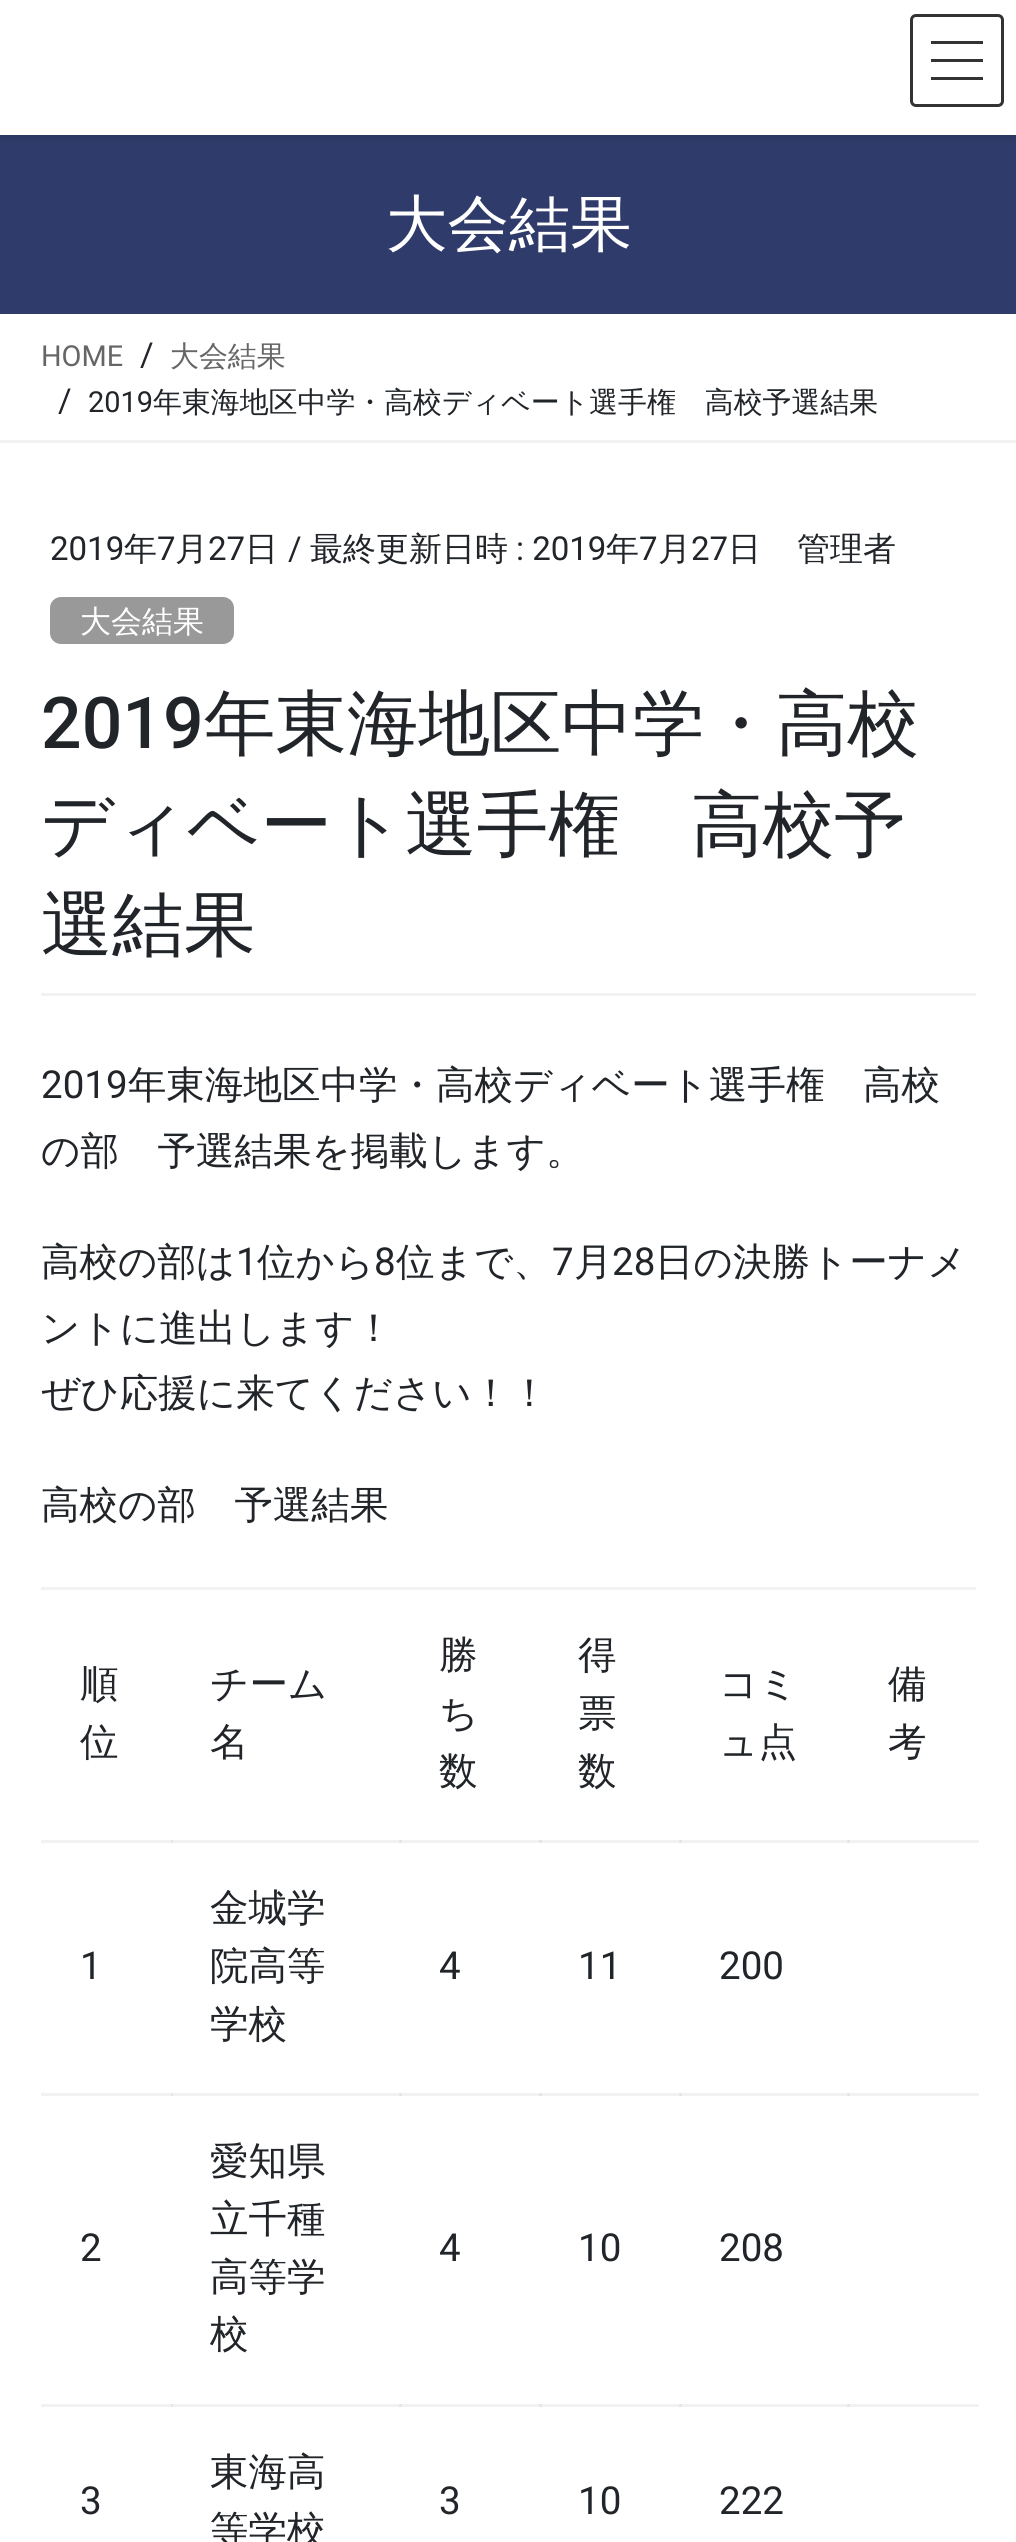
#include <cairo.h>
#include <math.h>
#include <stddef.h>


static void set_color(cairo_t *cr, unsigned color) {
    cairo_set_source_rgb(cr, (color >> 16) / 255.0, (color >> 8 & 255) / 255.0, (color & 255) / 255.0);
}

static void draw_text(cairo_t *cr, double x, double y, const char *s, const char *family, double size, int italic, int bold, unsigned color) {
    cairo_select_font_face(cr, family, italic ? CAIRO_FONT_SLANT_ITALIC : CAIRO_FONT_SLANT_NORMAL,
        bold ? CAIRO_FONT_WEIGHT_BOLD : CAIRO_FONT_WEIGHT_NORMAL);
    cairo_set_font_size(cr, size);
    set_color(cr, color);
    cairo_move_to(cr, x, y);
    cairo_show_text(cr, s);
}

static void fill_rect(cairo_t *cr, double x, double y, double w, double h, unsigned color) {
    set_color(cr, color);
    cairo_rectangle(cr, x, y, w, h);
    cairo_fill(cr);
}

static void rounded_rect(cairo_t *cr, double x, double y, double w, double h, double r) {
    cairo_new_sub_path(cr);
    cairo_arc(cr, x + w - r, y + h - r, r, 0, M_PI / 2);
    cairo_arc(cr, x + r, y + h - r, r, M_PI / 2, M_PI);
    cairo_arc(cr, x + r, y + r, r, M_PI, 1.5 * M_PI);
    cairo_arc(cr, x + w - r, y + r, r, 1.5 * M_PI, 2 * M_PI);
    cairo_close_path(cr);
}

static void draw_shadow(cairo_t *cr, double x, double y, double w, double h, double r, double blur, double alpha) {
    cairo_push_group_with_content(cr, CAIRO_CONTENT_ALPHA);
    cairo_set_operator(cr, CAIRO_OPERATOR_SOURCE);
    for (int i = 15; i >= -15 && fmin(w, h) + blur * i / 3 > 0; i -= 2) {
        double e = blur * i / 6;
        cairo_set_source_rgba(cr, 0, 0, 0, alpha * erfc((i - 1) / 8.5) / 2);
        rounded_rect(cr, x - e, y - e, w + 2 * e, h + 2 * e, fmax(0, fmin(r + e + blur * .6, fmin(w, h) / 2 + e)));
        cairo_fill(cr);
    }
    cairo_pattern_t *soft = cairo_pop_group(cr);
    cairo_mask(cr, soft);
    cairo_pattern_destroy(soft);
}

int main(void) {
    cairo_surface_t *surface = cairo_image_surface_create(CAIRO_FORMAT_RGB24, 1016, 2542);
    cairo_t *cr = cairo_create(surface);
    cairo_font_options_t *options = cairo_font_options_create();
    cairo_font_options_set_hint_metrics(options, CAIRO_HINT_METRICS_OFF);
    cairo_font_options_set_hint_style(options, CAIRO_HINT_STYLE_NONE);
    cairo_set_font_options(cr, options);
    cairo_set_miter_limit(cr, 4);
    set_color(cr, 0xFFFFFF);
    cairo_paint(cr);
    fill_rect(cr, 41, 1840, 938, 3, 0xF2F2F2);
    fill_rect(cr, 171, 1840, 2, 3, 0xE6E6E6);
    fill_rect(cr, 399, 1840, 3, 3, 0xE6E6E6);
    fill_rect(cr, 539, 1840, 3, 3, 0xE6E6E6);
    fill_rect(cr, 679, 1840, 3, 3, 0xE6E6E6);
    fill_rect(cr, 41, 2093, 938, 3, 0xF2F2F2);
    fill_rect(cr, 171, 2093, 2, 3, 0xE6E6E6);
    fill_rect(cr, 399, 2093, 3, 3, 0xE6E6E6);
    fill_rect(cr, 539, 2093, 3, 3, 0xE6E6E6);
    fill_rect(cr, 679, 2093, 3, 3, 0xE6E6E6);
    fill_rect(cr, 41, 2404, 938, 3, 0xF2F2F2);
    fill_rect(cr, 171, 2404, 2, 3, 0xE6E6E6);
    fill_rect(cr, 399, 2404, 3, 3, 0xE6E6E6);
    fill_rect(cr, 539, 2404, 3, 3, 0xE6E6E6);
    fill_rect(cr, 679, 2404, 3, 3, 0xE6E6E6);
    fill_rect(cr, 0, 135, 1016, 179, 0x2F3B6A);
    set_color(cr, 0x000000);
    draw_shadow(cr, 0, 3, 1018, 135, 0, 4, 0.1);
    fill_rect(cr, 0, 0, 1016, 135, 0xFFFFFF);
    fill_rect(cr, 931, 41, 52, 3, 0x333333);
    fill_rect(cr, 931, 59, 52, 3, 0x333333);
    fill_rect(cr, 931, 77, 52, 3, 0x333333);
    rounded_rect(cr, 911.5, 15.5, 91, 90, 4.5);
    cairo_set_line_width(cr, 3);
    cairo_stroke(cr);
    draw_text(cr, 386, 245, "大会結果", "WenQuanYi Zen Hei Medium", 61.5, 0, 0, 0xFFFFFF);
    fill_rect(cr, 0, 440, 1016, 3, 0xF2F2F2);
    draw_text(cr, 41, 366, "HOME", "Roboto", 28.9, 0, 0, 0x666666);
    draw_text(cr, 140, 366, "/", "Roboto", 33, 0, 0, 0x212529);
    draw_text(cr, 170, 366, "大会結果", "WenQuanYi Zen Hei Medium", 28.9, 0, 0, 0x666666);
    draw_text(cr, 58, 412, "/", "Roboto", 33, 0, 0, 0x212529);
    draw_text(cr, 88, 412, "2019", "Roboto", 28.9, 0, 0, 0x212529);
    draw_text(cr, 153, 412, "年東海地区中学・高校ディベート選手権　高校予選結果", "WenQuanYi Zen Hei Medium", 28.9, 0, 0, 0x212529);
    fill_rect(cr, 41, 993, 935, 3, 0xF2F2F2);
    draw_text(cr, 50, 560, "2019", "Roboto", 33, 0, 0, 0x212529);
    draw_text(cr, 124, 560, "年", "WenQuanYi Zen Hei Medium", 33, 0, 0, 0x212529);
    draw_text(cr, 157, 560, "7", "Roboto", 33, 0, 0, 0x212529);
    draw_text(cr, 175, 560, "月", "WenQuanYi Zen Hei Medium", 33, 0, 0, 0x212529);
    draw_text(cr, 208, 560, "27", "Roboto", 33, 0, 0, 0x212529);
    draw_text(cr, 245, 560, "日", "WenQuanYi Zen Hei Medium", 33, 0, 0, 0x212529);
    draw_text(cr, 288, 560, "/", "Roboto", 33, 0, 0, 0x212529);
    draw_text(cr, 310, 560, "最終更新日時", "WenQuanYi Zen Hei Medium", 33, 0, 0, 0x212529);
    draw_text(cr, 516, 560, ": 2019", "Roboto", 33, 0, 0, 0x212529);
    draw_text(cr, 606, 560, "年", "WenQuanYi Zen Hei Medium", 33, 0, 0, 0x212529);
    draw_text(cr, 639, 560, "7", "Roboto", 33, 0, 0, 0x212529);
    draw_text(cr, 658, 560, "月", "WenQuanYi Zen Hei Medium", 33, 0, 0, 0x212529);
    draw_text(cr, 691, 560, "27", "Roboto", 33, 0, 0, 0x212529);
    draw_text(cr, 728, 560, "日", "WenQuanYi Zen Hei Medium", 33, 0, 0, 0x212529);
    draw_text(cr, 797, 560, "管理者", "WenQuanYi Zen Hei Medium", 33, 0, 0, 0x212529);
    set_color(cr, 0x999999);
    rounded_rect(cr, 50, 597, 184, 47, 11);
    cairo_fill(cr);
    draw_text(cr, 80, 632, "大会結果", "WenQuanYi Zen Hei Medium", 31, 0, 0, 0xFFFFFF);
    draw_text(cr, 41, 748, "2019", "Roboto Medium", 71.5, 0, 0, 0x212529);
    draw_text(cr, 204, 748, "年東海地区中学・高校", "WenQuanYi Zen Hei Medium", 71.5, 0, 0, 0x212529);
    draw_text(cr, 41, 849, "ディベート選手権　高校予", "WenQuanYi Zen Hei Medium", 71.5, 0, 0, 0x212529);
    draw_text(cr, 41, 949, "選結果", "WenQuanYi Zen Hei Medium", 71.5, 0, 0, 0x212529);
    draw_text(cr, 41, 1098, "2019", "Roboto", 38.5, 0, 0, 0x212529);
    draw_text(cr, 128, 1098, "年東海地区中学・高校ディベート選手権　高校", "WenQuanYi Zen Hei Medium", 38.5, 0, 0, 0x212529);
    draw_text(cr, 41, 1164, "の部　予選結果を掲載します。", "WenQuanYi Zen Hei Medium", 38.5, 0, 0, 0x212529);
    draw_text(cr, 41, 1275, "高校の部は", "WenQuanYi Zen Hei Medium", 38.5, 0, 0, 0x212529);
    draw_text(cr, 236, 1275, "1", "Roboto", 38.5, 0, 0, 0x212529);
    draw_text(cr, 257, 1275, "位から", "WenQuanYi Zen Hei Medium", 38.5, 0, 0, 0x212529);
    draw_text(cr, 374, 1275, "8", "Roboto", 38.5, 0, 0, 0x212529);
    draw_text(cr, 396, 1275, "位まで、", "WenQuanYi Zen Hei Medium", 38.5, 0, 0, 0x212529);
    draw_text(cr, 552, 1275, "7", "Roboto", 38.5, 0, 0, 0x212529);
    draw_text(cr, 574, 1275, "月", "WenQuanYi Zen Hei Medium", 38.5, 0, 0, 0x212529);
    draw_text(cr, 612, 1275, "28", "Roboto", 38.5, 0, 0, 0x212529);
    draw_text(cr, 655, 1275, "日の決勝トーナメ", "WenQuanYi Zen Hei Medium", 38.5, 0, 0, 0x212529);
    draw_text(cr, 41, 1341, "ントに進出します！", "WenQuanYi Zen Hei Medium", 38.5, 0, 0, 0x212529);
    draw_text(cr, 41, 1406, "ぜひ応援に来てください！！", "WenQuanYi Zen Hei Medium", 38.5, 0, 0, 0x212529);
    draw_text(cr, 41, 1518, "高校の部　予選結果", "WenQuanYi Zen Hei Medium", 38.5, 0, 0, 0x212529);
    fill_rect(cr, 41, 1587, 935, 3, 0xF2F2F2);
    draw_text(cr, 80, 1697, "順", "WenQuanYi Zen Hei Medium", 38.5, 0, 0, 0x212529);
    draw_text(cr, 80, 1755, "位", "WenQuanYi Zen Hei Medium", 38.5, 0, 0, 0x212529);
    draw_text(cr, 210, 1697, "チーム", "WenQuanYi Zen Hei Medium", 38.5, 0, 0, 0x212529);
    draw_text(cr, 210, 1755, "名", "WenQuanYi Zen Hei Medium", 38.5, 0, 0, 0x212529);
    draw_text(cr, 439, 1668, "勝", "WenQuanYi Zen Hei Medium", 38.5, 0, 0, 0x212529);
    draw_text(cr, 439, 1726, "ち", "WenQuanYi Zen Hei Medium", 38.5, 0, 0, 0x212529);
    draw_text(cr, 439, 1784, "数", "WenQuanYi Zen Hei Medium", 38.5, 0, 0, 0x212529);
    draw_text(cr, 578, 1668, "得", "WenQuanYi Zen Hei Medium", 38.5, 0, 0, 0x212529);
    draw_text(cr, 578, 1726, "票", "WenQuanYi Zen Hei Medium", 38.5, 0, 0, 0x212529);
    draw_text(cr, 578, 1784, "数", "WenQuanYi Zen Hei Medium", 38.5, 0, 0, 0x212529);
    draw_text(cr, 719, 1697, "コミ", "WenQuanYi Zen Hei Medium", 38.5, 0, 0, 0x212529);
    draw_text(cr, 719, 1755, "ュ点", "WenQuanYi Zen Hei Medium", 38.5, 0, 0, 0x212529);
    fill_rect(cr, 847, 1840, 3, 3, 0xE6E6E6);
    draw_text(cr, 888, 1697, "備", "WenQuanYi Zen Hei Medium", 38.5, 0, 0, 0x212529);
    draw_text(cr, 888, 1755, "考", "WenQuanYi Zen Hei Medium", 38.5, 0, 0, 0x212529);
    draw_text(cr, 80, 1979, "1", "Roboto", 38.5, 0, 0, 0x212529);
    draw_text(cr, 210, 1921, "金城学", "WenQuanYi Zen Hei Medium", 38.5, 0, 0, 0x212529);
    draw_text(cr, 210, 1979, "院高等", "WenQuanYi Zen Hei Medium", 38.5, 0, 0, 0x212529);
    draw_text(cr, 210, 2037, "学校", "WenQuanYi Zen Hei Medium", 38.5, 0, 0, 0x212529);
    draw_text(cr, 439, 1979, "4", "Roboto", 38.5, 0, 0, 0x212529);
    draw_text(cr, 578, 1979, "11", "Roboto", 38.5, 0, 0, 0x212529);
    draw_text(cr, 719, 1979, "200", "Roboto", 38.5, 0, 0, 0x212529);
    fill_rect(cr, 847, 2093, 3, 3, 0xE6E6E6);
    draw_text(cr, 80, 2261, "2", "Roboto", 38.5, 0, 0, 0x212529);
    draw_text(cr, 210, 2174, "愛知県", "WenQuanYi Zen Hei Medium", 38.5, 0, 0, 0x212529);
    draw_text(cr, 210, 2232, "立千種", "WenQuanYi Zen Hei Medium", 38.5, 0, 0, 0x212529);
    draw_text(cr, 210, 2290, "高等学", "WenQuanYi Zen Hei Medium", 38.5, 0, 0, 0x212529);
    draw_text(cr, 210, 2347, "校", "WenQuanYi Zen Hei Medium", 38.5, 0, 0, 0x212529);
    draw_text(cr, 439, 2261, "4", "Roboto", 38.5, 0, 0, 0x212529);
    draw_text(cr, 578, 2261, "10", "Roboto", 38.5, 0, 0, 0x212529);
    draw_text(cr, 719, 2261, "208", "Roboto", 38.5, 0, 0, 0x212529);
    fill_rect(cr, 847, 2404, 3, 3, 0xE6E6E6);
    draw_text(cr, 80, 2514, "3", "Roboto", 38.5, 0, 0, 0x212529);
    draw_text(cr, 210, 2485, "東海高", "WenQuanYi Zen Hei Medium", 38.5, 0, 0, 0x212529);
    draw_text(cr, 210, 2543, "等学校", "WenQuanYi Zen Hei Medium", 38.5, 0, 0, 0x212529);
    draw_text(cr, 439, 2514, "3", "Roboto", 38.5, 0, 0, 0x212529);
    draw_text(cr, 578, 2514, "10", "Roboto", 38.5, 0, 0, 0x212529);
    draw_text(cr, 719, 2514, "222", "Roboto", 38.5, 0, 0, 0x212529);
    cairo_surface_write_to_png(surface, "output.png");
    cairo_font_options_destroy(options);
    cairo_destroy(cr);
    cairo_surface_destroy(surface);
    return 0;
}
